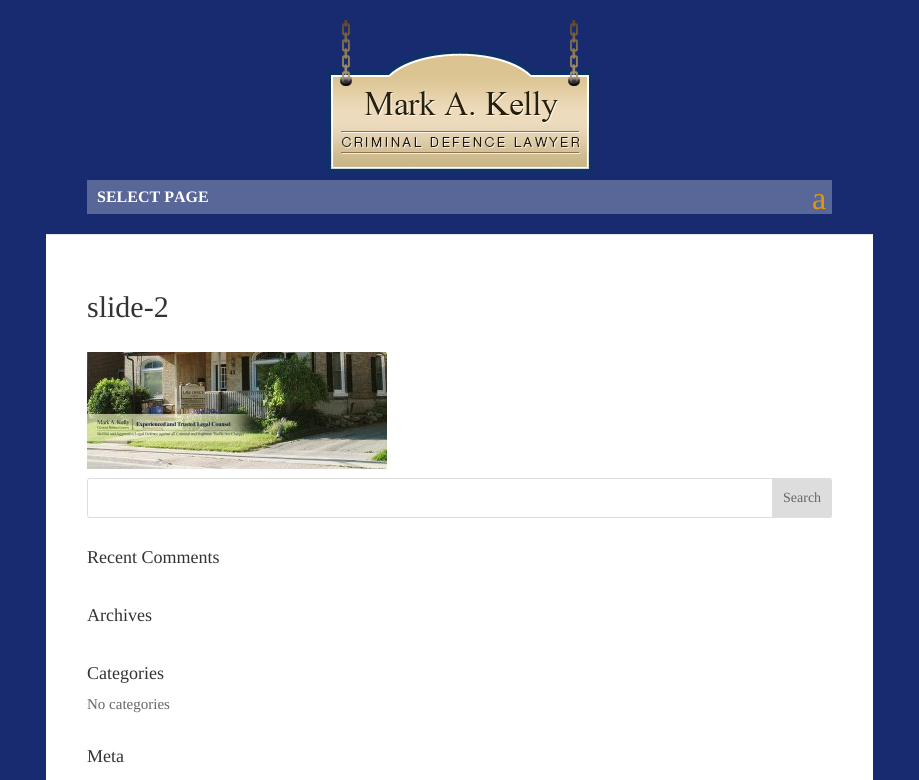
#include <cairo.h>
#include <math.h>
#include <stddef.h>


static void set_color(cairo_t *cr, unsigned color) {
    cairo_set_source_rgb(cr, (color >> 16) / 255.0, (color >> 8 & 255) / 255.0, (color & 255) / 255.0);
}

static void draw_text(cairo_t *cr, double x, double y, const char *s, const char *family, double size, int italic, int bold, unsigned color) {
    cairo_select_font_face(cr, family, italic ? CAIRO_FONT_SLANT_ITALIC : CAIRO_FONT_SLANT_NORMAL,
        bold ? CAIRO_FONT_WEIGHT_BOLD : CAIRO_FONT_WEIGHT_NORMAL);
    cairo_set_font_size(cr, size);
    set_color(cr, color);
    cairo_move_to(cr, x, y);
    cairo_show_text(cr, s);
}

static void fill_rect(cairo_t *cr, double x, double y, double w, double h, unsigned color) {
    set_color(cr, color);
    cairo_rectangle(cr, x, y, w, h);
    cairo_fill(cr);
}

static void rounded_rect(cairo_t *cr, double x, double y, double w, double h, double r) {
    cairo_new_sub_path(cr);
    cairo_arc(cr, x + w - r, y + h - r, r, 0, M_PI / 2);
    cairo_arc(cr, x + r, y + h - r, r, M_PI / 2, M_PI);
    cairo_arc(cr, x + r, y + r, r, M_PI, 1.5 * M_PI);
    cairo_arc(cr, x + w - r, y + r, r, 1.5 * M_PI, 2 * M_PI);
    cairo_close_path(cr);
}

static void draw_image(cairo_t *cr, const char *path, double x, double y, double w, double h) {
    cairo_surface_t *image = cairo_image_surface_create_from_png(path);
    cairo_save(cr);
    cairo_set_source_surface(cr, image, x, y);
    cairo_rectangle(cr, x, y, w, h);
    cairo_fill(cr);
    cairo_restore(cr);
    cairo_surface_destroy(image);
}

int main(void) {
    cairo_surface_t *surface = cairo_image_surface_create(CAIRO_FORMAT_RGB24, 919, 780);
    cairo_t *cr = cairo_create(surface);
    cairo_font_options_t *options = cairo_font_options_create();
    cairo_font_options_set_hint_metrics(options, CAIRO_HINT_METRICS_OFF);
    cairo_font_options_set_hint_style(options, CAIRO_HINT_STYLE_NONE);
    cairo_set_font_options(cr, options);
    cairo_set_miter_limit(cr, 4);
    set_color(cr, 0x182B70);
    cairo_paint(cr);
    fill_rect(cr, 46, 234, 827, 1, 0xE6E6E6);
    draw_image(cr, "assets/img1.png", 326, 20, 268, 154);
    fill_rect(cr, 87, 180, 745, 34, 0x586698);
    draw_text(cr, 97, 202, "SELECT PAGE", "Liberation Serif", 16, 0, 1, 0xFFFFFF);
    draw_text(cr, 812, 209, "a", "Liberation Serif", 32, 0, 0, 0xE09900);
    fill_rect(cr, 46, 235, 827, 545, 0xFFFFFF);
    draw_text(cr, 87, 317, "slide-2", "Liberation Serif", 30, 0, 0, 0x333333);
    draw_image(cr, "assets/img2.png", 87, 352, 300, 117);
    rounded_rect(cr, 87.5, 478.5, 744, 39, 2.5);
    set_color(cr, 0xDDDDDD);
    cairo_set_line_width(cr, 1);
    cairo_stroke(cr);
    cairo_new_path(cr);
    cairo_move_to(cr, 772.5, 478.5);
    cairo_line_to(cr, 829, 478.5);
    cairo_curve_to(cr, 830.5, 478.5, 831.5, 479.5, 831.5, 481);
    cairo_line_to(cr, 831.5, 515);
    cairo_curve_to(cr, 831.5, 516.5, 830.5, 517.5, 829, 517.5);
    cairo_line_to(cr, 772.5, 517.5);
    cairo_close_path(cr);
    cairo_fill_preserve(cr);
    cairo_stroke(cr);
    draw_text(cr, 783, 502, "Search", "Liberation Serif", 14, 0, 0, 0x666666);
    draw_text(cr, 87, 563, "Recent Comments", "Liberation Serif", 18, 0, 0, 0x333333);
    draw_text(cr, 87, 621, "Archives", "Liberation Serif", 18, 0, 0, 0x333333);
    draw_text(cr, 87, 679, "Categories", "Liberation Serif", 18, 0, 0, 0x333333);
    draw_text(cr, 87, 709, "No categories", "Liberation Serif", 15, 0, 0, 0x666666);
    draw_text(cr, 87, 762, "Meta", "Liberation Serif", 18, 0, 0, 0x333333);
    cairo_surface_write_to_png(surface, "output.png");
    cairo_font_options_destroy(options);
    cairo_destroy(cr);
    cairo_surface_destroy(surface);
    return 0;
}
